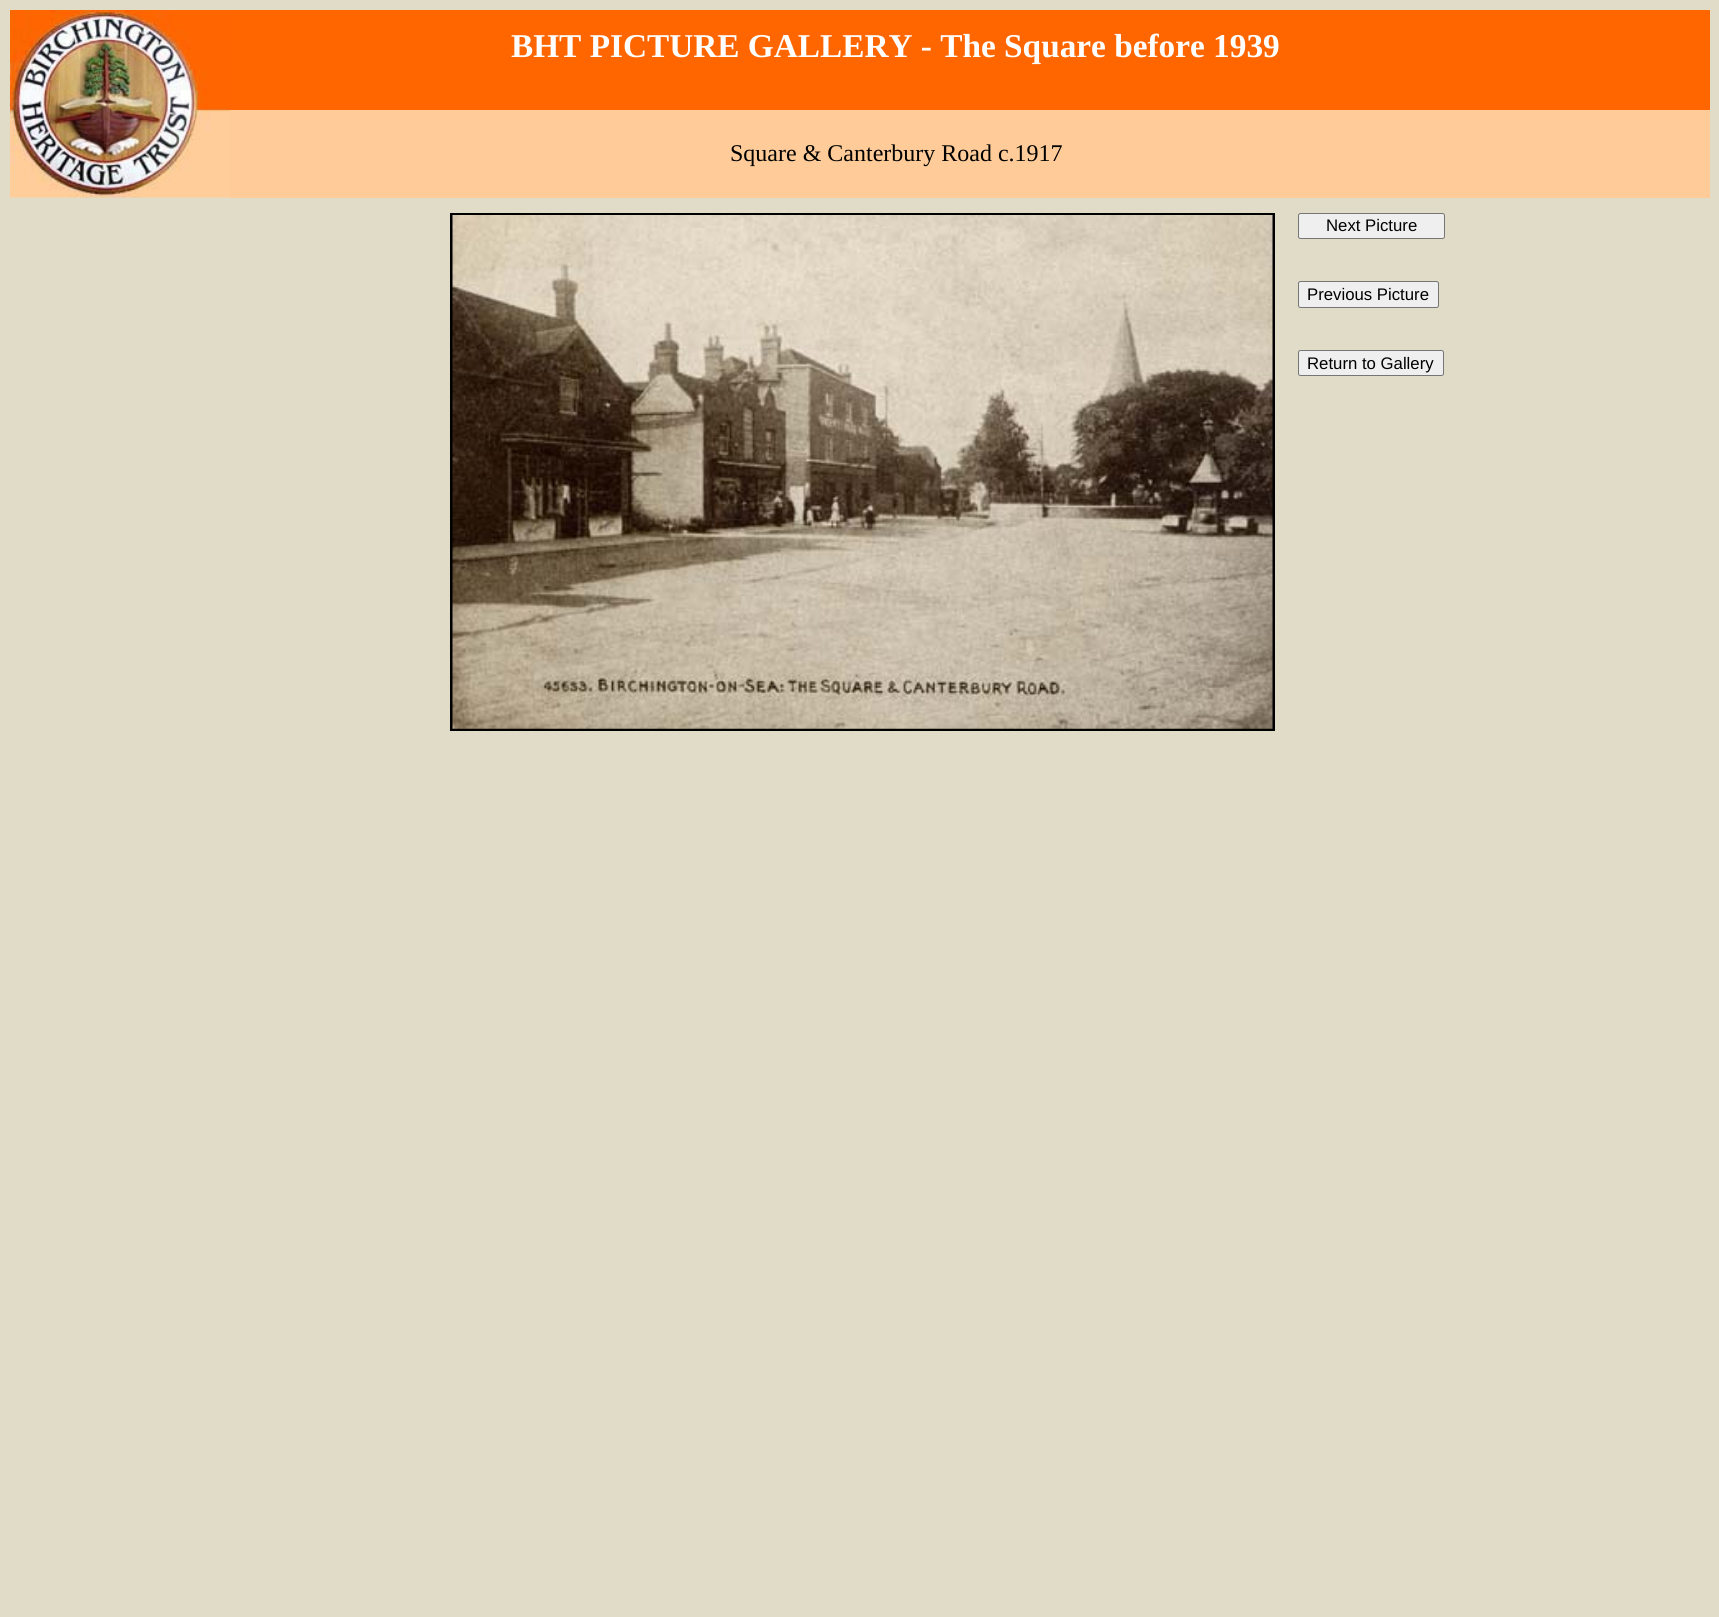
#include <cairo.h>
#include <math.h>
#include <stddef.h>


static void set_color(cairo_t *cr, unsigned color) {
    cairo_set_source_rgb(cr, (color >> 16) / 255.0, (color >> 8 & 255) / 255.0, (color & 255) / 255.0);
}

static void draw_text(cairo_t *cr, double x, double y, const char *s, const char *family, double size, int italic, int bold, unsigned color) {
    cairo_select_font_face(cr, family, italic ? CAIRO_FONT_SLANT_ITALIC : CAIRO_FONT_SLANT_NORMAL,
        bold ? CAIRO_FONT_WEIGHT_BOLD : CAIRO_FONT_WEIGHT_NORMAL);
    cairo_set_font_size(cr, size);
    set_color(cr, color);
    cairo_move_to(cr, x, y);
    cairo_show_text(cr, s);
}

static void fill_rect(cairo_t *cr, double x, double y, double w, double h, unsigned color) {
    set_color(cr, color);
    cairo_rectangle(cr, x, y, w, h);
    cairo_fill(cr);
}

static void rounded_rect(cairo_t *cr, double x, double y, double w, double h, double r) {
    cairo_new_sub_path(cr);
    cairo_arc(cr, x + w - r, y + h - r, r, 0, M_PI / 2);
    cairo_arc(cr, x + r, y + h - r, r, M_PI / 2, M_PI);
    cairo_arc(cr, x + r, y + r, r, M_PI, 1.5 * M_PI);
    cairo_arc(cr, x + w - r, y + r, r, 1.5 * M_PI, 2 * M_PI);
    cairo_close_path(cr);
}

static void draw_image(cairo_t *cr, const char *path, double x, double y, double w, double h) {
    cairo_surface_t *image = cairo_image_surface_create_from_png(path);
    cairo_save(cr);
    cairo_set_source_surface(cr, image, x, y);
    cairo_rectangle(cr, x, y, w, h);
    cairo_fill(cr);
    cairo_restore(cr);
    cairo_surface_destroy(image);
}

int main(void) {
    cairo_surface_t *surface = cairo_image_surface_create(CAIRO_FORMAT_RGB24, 1719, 1617);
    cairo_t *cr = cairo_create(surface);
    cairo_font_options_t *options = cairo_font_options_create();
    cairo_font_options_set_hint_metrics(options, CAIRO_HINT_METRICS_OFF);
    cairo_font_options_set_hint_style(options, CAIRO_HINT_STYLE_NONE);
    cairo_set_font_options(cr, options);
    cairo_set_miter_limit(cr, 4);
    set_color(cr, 0xE1DCC7);
    cairo_paint(cr);
    draw_image(cr, "assets/img1.png", 10, 10, 220, 188);
    fill_rect(cr, 230, 10, 1480, 100, 0xFF6600);
    draw_text(cr, 511, 57, "BHT PICTURE GALLERY - The Square before 1939", "Liberation Serif", 33.3, 0, 1, 0xFFFFFF);
    fill_rect(cr, 230, 110, 1480, 88, 0xFFCC99);
    draw_text(cr, 730, 161, "Square & Canterbury Road c.1917", "Liberation Serif", 24, 0, 0, 0x000000);
    cairo_rectangle(cr, 451.5, 214.5, 822, 515);
    cairo_set_line_width(cr, 3);
    cairo_stroke(cr);
    draw_image(cr, "assets/img2.png", 452, 215, 821, 514);
    set_color(cr, 0xEFEFEF);
    rounded_rect(cr, 1298.5, 213.5, 146, 25, 2);
    cairo_fill_preserve(cr);
    set_color(cr, 0x767676);
    cairo_set_line_width(cr, 1);
    cairo_stroke(cr);
    draw_text(cr, 1326, 231, "Next Picture", "Liberation Sans", 16.75, 0, 0, 0x000000);
    set_color(cr, 0xEFEFEF);
    rounded_rect(cr, 1298.5, 281.5, 140, 26, 2);
    cairo_fill_preserve(cr);
    set_color(cr, 0x767676);
    cairo_stroke(cr);
    draw_text(cr, 1307, 300, "Previous Picture", "Liberation Sans", 16.75, 0, 0, 0x000000);
    set_color(cr, 0xEFEFEF);
    rounded_rect(cr, 1298.5, 350.5, 145, 25, 2);
    cairo_fill_preserve(cr);
    set_color(cr, 0x767676);
    cairo_stroke(cr);
    draw_text(cr, 1307, 369, "Return to Gallery", "Liberation Sans", 16.75, 0, 0, 0x000000);
    cairo_surface_write_to_png(surface, "output.png");
    cairo_font_options_destroy(options);
    cairo_destroy(cr);
    cairo_surface_destroy(surface);
    return 0;
}
